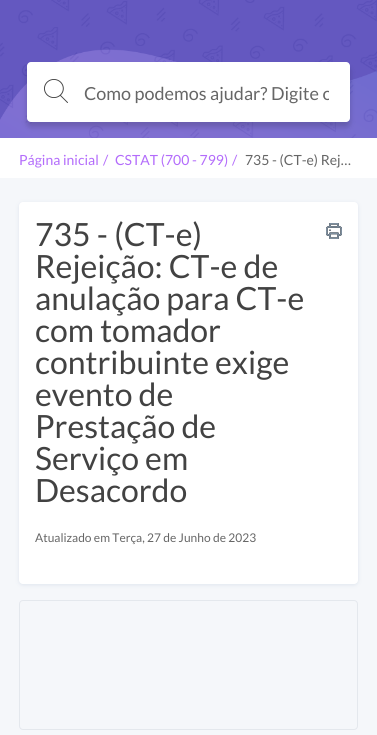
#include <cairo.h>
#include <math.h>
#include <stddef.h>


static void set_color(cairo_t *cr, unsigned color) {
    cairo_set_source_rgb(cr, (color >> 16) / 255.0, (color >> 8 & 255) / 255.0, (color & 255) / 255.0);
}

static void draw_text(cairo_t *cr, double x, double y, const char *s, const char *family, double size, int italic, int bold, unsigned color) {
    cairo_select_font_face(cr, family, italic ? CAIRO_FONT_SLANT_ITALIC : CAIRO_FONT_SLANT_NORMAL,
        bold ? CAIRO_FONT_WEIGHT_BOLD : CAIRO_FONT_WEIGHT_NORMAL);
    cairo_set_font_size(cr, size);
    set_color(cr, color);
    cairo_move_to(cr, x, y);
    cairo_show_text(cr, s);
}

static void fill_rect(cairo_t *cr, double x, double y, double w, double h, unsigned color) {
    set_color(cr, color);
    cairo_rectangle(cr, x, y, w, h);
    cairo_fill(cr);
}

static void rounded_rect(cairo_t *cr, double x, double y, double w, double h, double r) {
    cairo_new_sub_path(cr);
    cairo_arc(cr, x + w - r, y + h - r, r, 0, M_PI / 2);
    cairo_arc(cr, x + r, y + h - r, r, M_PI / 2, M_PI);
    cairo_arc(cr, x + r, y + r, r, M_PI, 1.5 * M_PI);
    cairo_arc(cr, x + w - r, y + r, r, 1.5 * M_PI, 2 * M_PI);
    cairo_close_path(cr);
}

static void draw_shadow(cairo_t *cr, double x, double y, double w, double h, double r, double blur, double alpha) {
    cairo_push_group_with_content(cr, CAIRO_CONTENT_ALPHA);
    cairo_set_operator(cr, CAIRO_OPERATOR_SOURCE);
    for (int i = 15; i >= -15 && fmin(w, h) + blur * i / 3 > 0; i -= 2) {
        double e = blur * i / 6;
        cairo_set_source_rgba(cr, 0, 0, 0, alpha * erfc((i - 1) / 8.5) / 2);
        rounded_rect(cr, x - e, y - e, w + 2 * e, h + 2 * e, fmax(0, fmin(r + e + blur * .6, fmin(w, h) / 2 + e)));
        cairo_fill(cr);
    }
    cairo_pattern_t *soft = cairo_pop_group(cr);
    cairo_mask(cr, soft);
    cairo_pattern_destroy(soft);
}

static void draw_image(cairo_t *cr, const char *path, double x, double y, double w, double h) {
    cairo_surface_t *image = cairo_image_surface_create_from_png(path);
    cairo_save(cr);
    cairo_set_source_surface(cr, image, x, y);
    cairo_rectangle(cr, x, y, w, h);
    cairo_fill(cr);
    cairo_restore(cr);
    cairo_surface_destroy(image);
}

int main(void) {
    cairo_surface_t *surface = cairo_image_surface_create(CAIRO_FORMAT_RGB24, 377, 735);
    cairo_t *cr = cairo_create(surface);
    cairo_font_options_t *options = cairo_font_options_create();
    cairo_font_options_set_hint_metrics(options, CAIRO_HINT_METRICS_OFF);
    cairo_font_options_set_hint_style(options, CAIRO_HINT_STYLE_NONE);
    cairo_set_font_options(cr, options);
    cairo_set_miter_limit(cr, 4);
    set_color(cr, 0xF5F7FA);
    cairo_paint(cr);
    draw_image(cr, "assets/img1.png", 0, 0, 377, 138);
    set_color(cr, 0x000000);
    draw_shadow(cr, 27, 67, 323, 60, 4, 3, 0.17);
    set_color(cr, 0xFFFFFF);
    rounded_rect(cr, 27, 62, 323, 60, 4);
    cairo_fill(cr);
    draw_image(cr, "assets/img2.png", 44, 79, 24, 24);
    cairo_save(cr);
    cairo_rectangle(cr, 84, 82, 245, 60);
    cairo_clip(cr);
    draw_text(cr, 84, 100, "Como podemos ajudar? Digite o", "Lato", 18, 0, 0, 0x666666);
    cairo_restore(cr);
    fill_rect(cr, 0, 138, 377, 40, 0xFFFFFF);
    draw_text(cr, 19, 165, "Página inicial", "Lato", 14, 0, 0, 0xB36CFB);
    draw_text(cr, 103, 165, "/", "Lato", 14, 0, 0, 0xB36CFB);
    draw_text(cr, 115, 165, "CSTAT (700 - 799)", "Lato", 14, 0, 0, 0xB36CFB);
    draw_text(cr, 232, 165, "/", "Lato", 14, 0, 0, 0xB36CFB);
    draw_text(cr, 245, 165, "735 - (CT-e) Rej…", "Lato", 14, 0, 0, 0x666666);
    set_color(cr, 0xDFE5EE);
    draw_shadow(cr, 19, 203, 339, 382, 4, 2, 1);
    set_color(cr, 0xFFFFFF);
    rounded_rect(cr, 19, 202, 339, 382, 4);
    cairo_fill(cr);
    draw_text(cr, 35, 246, "735 - (CT-e)", "Lato", 32, 0, 0, 0x424242);
    draw_text(cr, 35, 278, "Rejeição: CT-e de", "Lato", 32, 0, 0, 0x424242);
    draw_text(cr, 35, 310, "anulação para CT-e", "Lato", 32, 0, 0, 0x424242);
    draw_text(cr, 35, 342, "com tomador", "Lato", 32, 0, 0, 0x424242);
    draw_text(cr, 35, 374, "contribuinte exige", "Lato", 32, 0, 0, 0x424242);
    draw_text(cr, 35, 406, "evento de", "Lato", 32, 0, 0, 0x424242);
    draw_text(cr, 35, 438, "Prestação de", "Lato", 32, 0, 0, 0x424242);
    draw_text(cr, 35, 470, "Serviço em", "Lato", 32, 0, 0, 0x424242);
    draw_text(cr, 35, 502, "Desacordo", "Lato", 32, 0, 0, 0x424242);
    draw_image(cr, "assets/img3.png", 326, 223, 16, 16);
    draw_text(cr, 35, 542, "Atualizado em Terça, 27 de Junho de 2023", "Lato", 12, 0, 0, 0x666666);
    rounded_rect(cr, 19.5, 600.5, 338, 129, 3.5);
    set_color(cr, 0xE4E8ED);
    cairo_set_line_width(cr, 1);
    cairo_stroke(cr);
    cairo_surface_write_to_png(surface, "output.png");
    cairo_font_options_destroy(options);
    cairo_destroy(cr);
    cairo_surface_destroy(surface);
    return 0;
}
